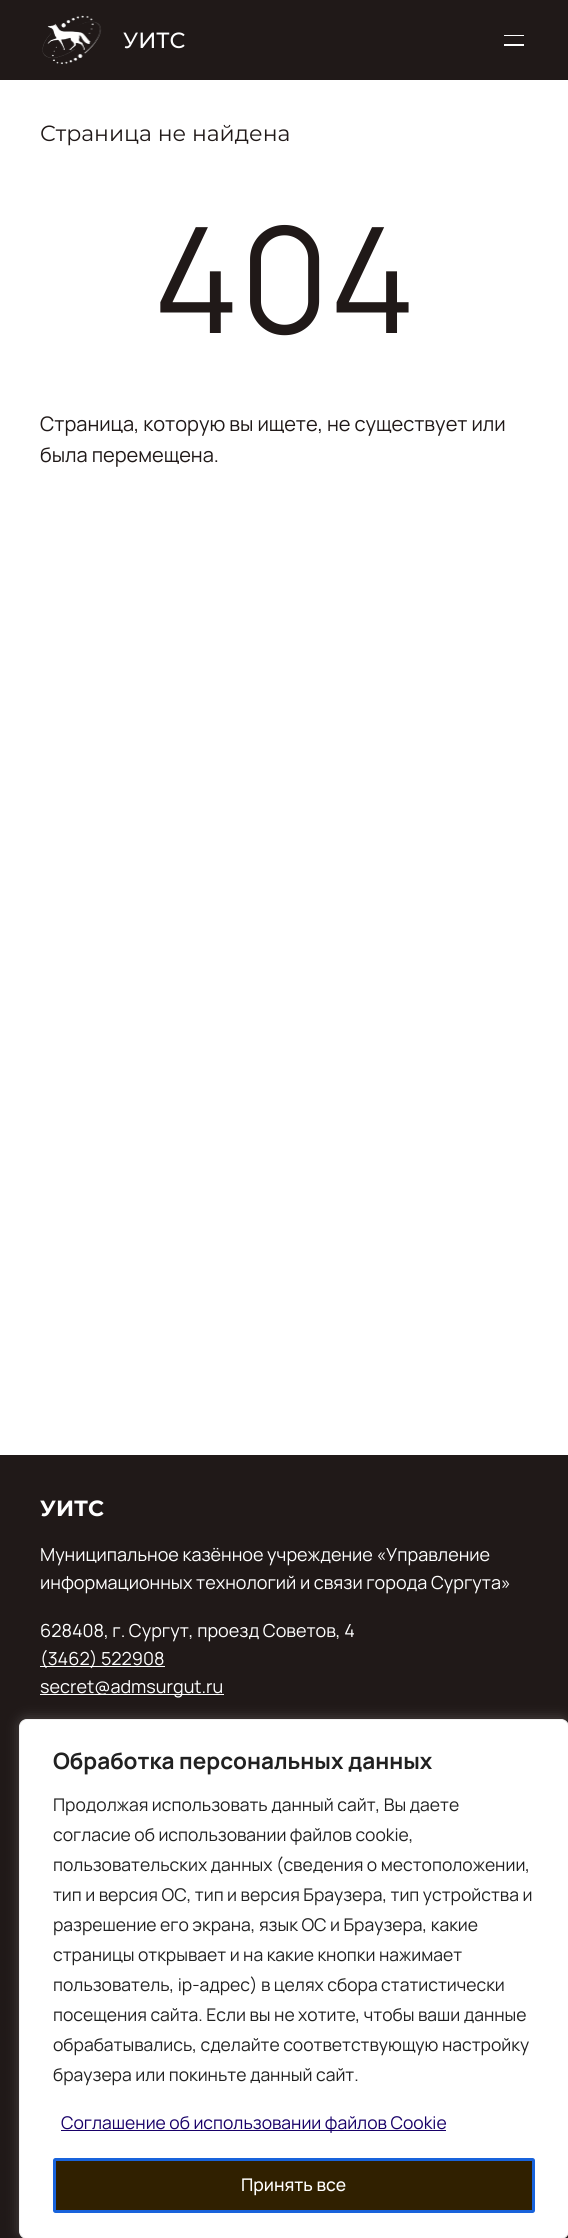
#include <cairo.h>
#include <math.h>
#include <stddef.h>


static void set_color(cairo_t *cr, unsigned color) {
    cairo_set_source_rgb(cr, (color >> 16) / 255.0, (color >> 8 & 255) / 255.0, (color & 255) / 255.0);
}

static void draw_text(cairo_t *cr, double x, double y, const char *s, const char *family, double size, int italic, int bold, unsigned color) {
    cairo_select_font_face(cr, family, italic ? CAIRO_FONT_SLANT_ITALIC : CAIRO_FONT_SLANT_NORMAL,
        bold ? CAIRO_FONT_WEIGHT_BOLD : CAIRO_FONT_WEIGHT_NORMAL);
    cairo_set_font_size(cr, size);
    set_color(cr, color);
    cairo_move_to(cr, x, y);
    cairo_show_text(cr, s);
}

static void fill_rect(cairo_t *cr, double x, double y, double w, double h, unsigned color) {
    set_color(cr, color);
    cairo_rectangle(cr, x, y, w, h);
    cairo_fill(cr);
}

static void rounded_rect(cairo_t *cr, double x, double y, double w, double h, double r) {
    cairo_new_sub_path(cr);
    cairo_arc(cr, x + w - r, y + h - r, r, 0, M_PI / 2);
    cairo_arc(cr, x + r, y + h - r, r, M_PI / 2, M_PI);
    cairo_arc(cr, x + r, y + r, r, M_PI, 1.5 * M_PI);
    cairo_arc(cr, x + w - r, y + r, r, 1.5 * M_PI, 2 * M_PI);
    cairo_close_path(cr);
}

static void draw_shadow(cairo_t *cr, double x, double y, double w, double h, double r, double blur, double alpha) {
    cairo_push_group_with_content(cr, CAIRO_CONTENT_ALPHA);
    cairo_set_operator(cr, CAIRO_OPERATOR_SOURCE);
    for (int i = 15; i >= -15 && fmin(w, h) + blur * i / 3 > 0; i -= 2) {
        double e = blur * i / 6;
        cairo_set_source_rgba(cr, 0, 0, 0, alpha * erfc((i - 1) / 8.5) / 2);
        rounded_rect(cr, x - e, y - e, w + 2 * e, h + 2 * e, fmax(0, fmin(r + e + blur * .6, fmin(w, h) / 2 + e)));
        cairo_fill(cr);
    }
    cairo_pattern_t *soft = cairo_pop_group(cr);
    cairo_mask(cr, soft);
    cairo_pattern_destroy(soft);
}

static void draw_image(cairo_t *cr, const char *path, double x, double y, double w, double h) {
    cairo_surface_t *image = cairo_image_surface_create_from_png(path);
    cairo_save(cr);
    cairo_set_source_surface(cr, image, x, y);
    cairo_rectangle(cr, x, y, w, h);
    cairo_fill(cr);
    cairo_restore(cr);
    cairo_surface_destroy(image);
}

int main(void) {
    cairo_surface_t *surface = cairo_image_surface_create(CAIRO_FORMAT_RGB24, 568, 2238);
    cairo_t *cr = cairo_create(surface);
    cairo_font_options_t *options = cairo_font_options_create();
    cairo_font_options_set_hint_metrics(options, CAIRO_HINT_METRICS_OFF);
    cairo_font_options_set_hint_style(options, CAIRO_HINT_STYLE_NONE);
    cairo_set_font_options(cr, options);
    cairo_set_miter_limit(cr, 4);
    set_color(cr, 0xFFFFFF);
    cairo_paint(cr);
    fill_rect(cr, 0, 0, 568, 80, 0x201918);
    draw_image(cr, "assets/img1.png", 42, 15, 60, 50);
    draw_text(cr, 123, 48, "УИТС", "Montserrat Medium", 22, 0, 0, 0xFFFFFF);
    fill_rect(cr, 504, 35, 20, 1, 0xFFFFFF);
    fill_rect(cr, 504, 44, 20, 2, 0xFFFFFF);
    draw_text(cr, 40, 141, "Страница не найдена", "Montserrat", 22, 0, 0, 0x201918);
    draw_text(cr, 153, 333, "404", "Manrope", 147, 0, 0, 0x201918);
    draw_text(cr, 40, 431, "Страница, которую вы ищете, не существует или", "Manrope", 20, 0, 0, 0x201918);
    draw_text(cr, 40, 462, "была перемещена.", "Manrope", 20, 0, 0, 0x201918);
    fill_rect(cr, 0, 1455, 568, 783, 0x201918);
    draw_text(cr, 40, 1516, "УИТС", "Montserrat", 22, 0, 1, 0xFFFFFF);
    draw_text(cr, 40, 1561, "Муниципальное казённое учреждение «Управление", "Manrope", 18, 0, 0, 0xFFFFFF);
    draw_text(cr, 40, 1589, "информационных технологий и связи города Сургута»", "Manrope", 18, 0, 0, 0xFFFFFF);
    draw_text(cr, 40, 1637, "628408, г. Сургут, проезд Советов, 4", "Manrope", 18, 0, 0, 0xFFFFFF);
    fill_rect(cr, 40, 1666, 125, 1, 0xFFFFFF);
    draw_text(cr, 40, 1665, "(3462) 522908", "Manrope", 18, 0, 0, 0xFFFFFF);
    fill_rect(cr, 40, 1694, 184, 1, 0xFFFFFF);
    draw_text(cr, 40, 1693, "secret@admsurgut.ru", "Manrope", 18, 0, 0, 0xFFFFFF);
    set_color(cr, 0xACABAB);
    draw_shadow(cr, 19, 1718, 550, 520, 8, 6, 0.3);
    set_color(cr, 0xFFFFFF);
    rounded_rect(cr, 19.5, 1719.5, 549, 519, 7.5);
    cairo_fill_preserve(cr);
    set_color(cr, 0xF4F4F4);
    cairo_set_line_width(cr, 1);
    cairo_stroke(cr);
    draw_text(cr, 53, 1769, "Обработка персональных данных", "Manrope", 22.5, 0, 1, 0x212121);
    draw_text(cr, 53, 1811, "Продолжая использовать данный сайт, Вы даете", "Manrope", 17.5, 0, 0, 0x212121);
    draw_text(cr, 53, 1841, "согласие об использовании файлов cookie,", "Manrope", 17.5, 0, 0, 0x212121);
    draw_text(cr, 53, 1871, "пользовательских данных (сведения о местоположении,", "Manrope", 17.5, 0, 0, 0x212121);
    draw_text(cr, 53, 1901, "тип и версия ОС, тип и версия Браузера, тип устройства и", "Manrope", 17.5, 0, 0, 0x212121);
    draw_text(cr, 53, 1931, "разрешение его экрана, язык ОС и Браузера, какие", "Manrope", 17.5, 0, 0, 0x212121);
    draw_text(cr, 53, 1961, "страницы открывает и на какие кнопки нажимает", "Manrope", 17.5, 0, 0, 0x212121);
    draw_text(cr, 53, 1991, "пользователь, ip-адрес) в целях сбора статистически", "Manrope", 17.5, 0, 0, 0x212121);
    draw_text(cr, 53, 2021, "посещения сайта. Если вы не хотите, чтобы ваши данные", "Manrope", 17.5, 0, 0, 0x212121);
    draw_text(cr, 53, 2051, "обрабатывались, сделайте соответствующую настройку", "Manrope", 17.5, 0, 0, 0x212121);
    draw_text(cr, 53, 2081, "браузера или покиньте данный сайт.", "Manrope", 17.5, 0, 0, 0x212121);
    fill_rect(cr, 61, 2130, 385, 1, 0x180068);
    draw_text(cr, 61, 2129, "Соглашение об использовании файлов Cookie", "Manrope", 17.5, 0, 0, 0x180068);
    set_color(cr, 0x302000);
    rounded_rect(cr, 54.5, 2159.5, 479, 52, 1);
    cairo_fill_preserve(cr);
    set_color(cr, 0x1863DC);
    cairo_set_line_width(cr, 3);
    cairo_stroke(cr);
    draw_text(cr, 241, 2191, "Принять все", "Manrope Medium", 17.5, 0, 0, 0xFFFFFF);
    cairo_surface_write_to_png(surface, "output.png");
    cairo_font_options_destroy(options);
    cairo_destroy(cr);
    cairo_surface_destroy(surface);
    return 0;
}
